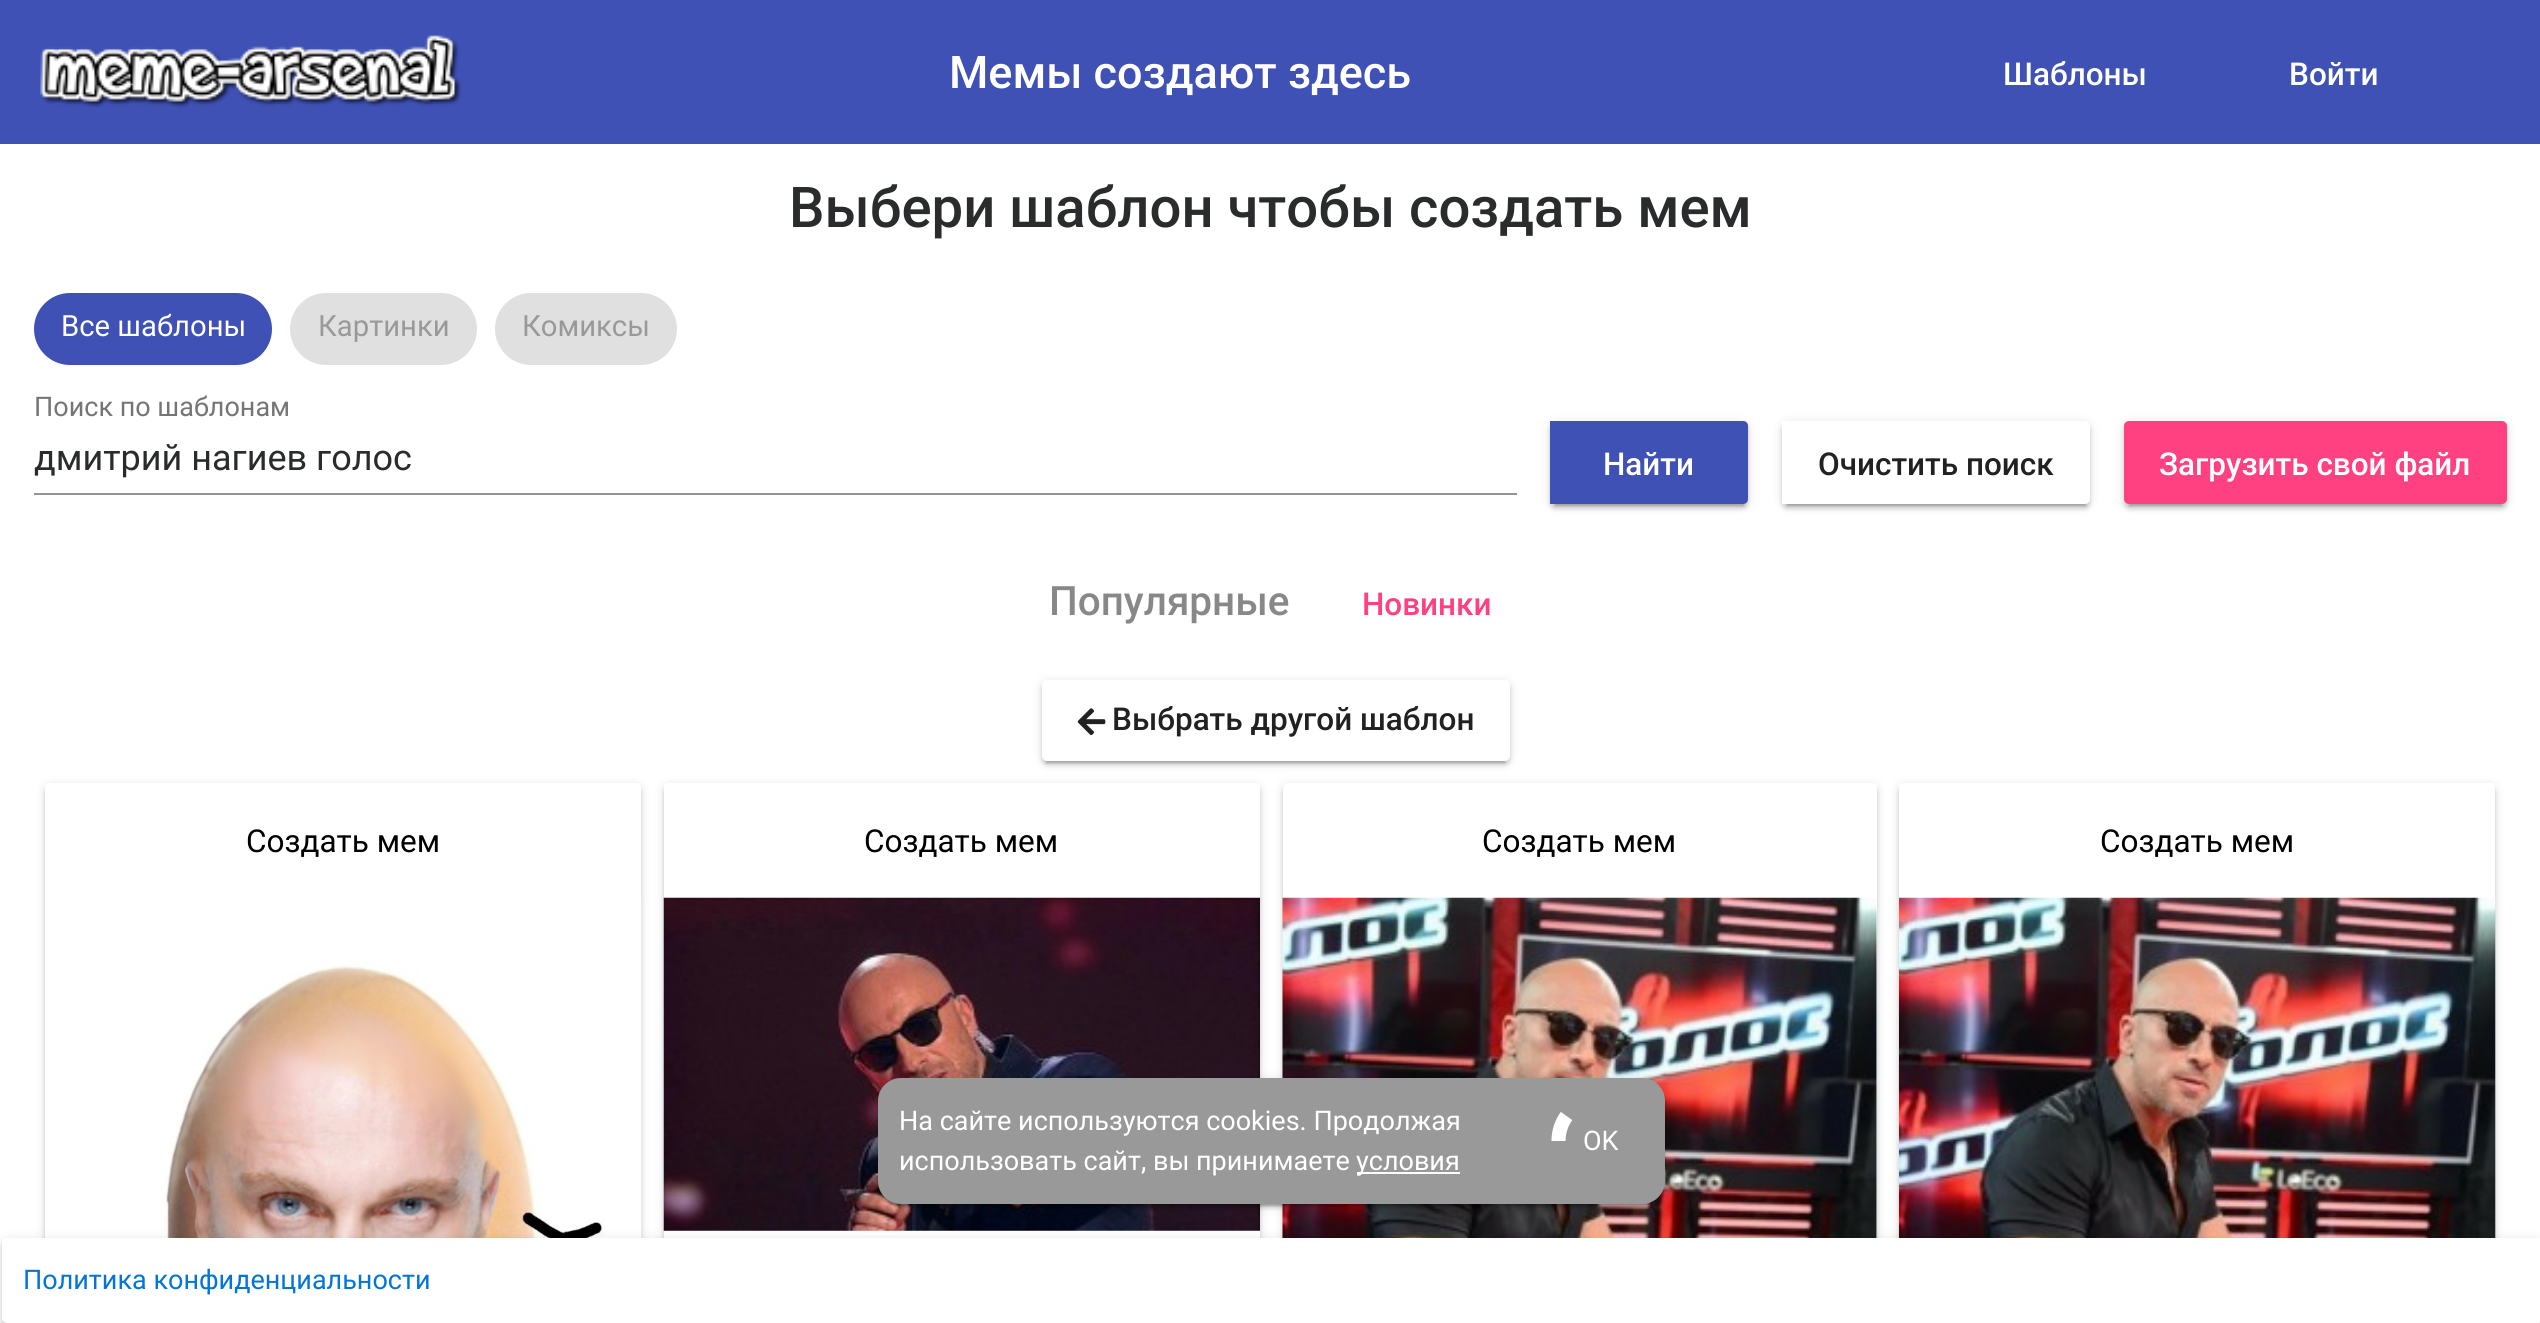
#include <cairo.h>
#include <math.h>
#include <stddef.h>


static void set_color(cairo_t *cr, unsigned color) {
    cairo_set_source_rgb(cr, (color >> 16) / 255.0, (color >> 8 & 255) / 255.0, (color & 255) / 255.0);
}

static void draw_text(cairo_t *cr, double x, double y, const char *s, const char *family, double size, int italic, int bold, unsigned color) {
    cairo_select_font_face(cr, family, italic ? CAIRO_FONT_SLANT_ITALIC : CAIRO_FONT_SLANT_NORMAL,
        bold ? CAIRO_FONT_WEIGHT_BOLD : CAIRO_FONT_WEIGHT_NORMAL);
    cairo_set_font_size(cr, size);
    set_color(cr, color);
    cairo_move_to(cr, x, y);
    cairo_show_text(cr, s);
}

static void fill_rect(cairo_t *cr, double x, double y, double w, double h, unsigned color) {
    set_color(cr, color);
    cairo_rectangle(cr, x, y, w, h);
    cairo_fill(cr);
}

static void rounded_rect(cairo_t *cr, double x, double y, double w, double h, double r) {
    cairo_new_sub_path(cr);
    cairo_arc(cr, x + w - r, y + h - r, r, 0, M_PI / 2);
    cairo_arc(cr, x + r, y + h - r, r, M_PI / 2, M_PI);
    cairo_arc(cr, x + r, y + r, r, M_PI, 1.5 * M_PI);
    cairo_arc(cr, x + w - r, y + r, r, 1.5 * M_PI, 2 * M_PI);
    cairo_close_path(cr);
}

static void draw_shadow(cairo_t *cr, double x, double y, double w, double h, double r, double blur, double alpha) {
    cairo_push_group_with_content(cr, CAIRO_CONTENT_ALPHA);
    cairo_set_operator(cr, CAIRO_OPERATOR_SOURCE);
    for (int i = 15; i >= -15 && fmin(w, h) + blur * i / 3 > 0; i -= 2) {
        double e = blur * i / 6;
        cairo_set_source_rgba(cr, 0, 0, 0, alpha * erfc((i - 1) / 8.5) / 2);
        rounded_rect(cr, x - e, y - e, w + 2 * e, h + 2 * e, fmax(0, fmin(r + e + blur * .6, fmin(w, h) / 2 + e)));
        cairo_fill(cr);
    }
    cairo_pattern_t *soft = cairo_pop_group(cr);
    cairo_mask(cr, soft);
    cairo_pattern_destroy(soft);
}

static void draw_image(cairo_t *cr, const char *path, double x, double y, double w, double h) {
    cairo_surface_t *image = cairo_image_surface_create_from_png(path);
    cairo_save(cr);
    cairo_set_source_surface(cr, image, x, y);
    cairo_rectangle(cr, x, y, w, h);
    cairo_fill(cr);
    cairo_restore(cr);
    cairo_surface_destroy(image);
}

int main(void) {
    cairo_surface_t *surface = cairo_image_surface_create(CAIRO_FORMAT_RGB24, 2540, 1323);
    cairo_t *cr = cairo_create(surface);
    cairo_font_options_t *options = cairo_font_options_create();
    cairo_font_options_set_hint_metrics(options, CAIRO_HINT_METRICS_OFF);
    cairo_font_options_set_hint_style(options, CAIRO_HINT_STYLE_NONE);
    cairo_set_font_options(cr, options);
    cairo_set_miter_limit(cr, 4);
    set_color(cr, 0xFFFFFF);
    cairo_paint(cr);
    fill_rect(cr, 0, 0, 2540, 144, 0x3F51B5);
    draw_image(cr, "assets/img1.png", 40, 35, 422, 73);
    draw_text(cr, 949, 88, "Мемы создают здесь", "Roboto Medium", 45, 0, 0, 0xFFFFFF);
    draw_text(cr, 2003, 85, "Шаблоны", "Roboto Medium", 31.5, 0, 0, 0xFFFFFF);
    draw_text(cr, 2289, 85, "Войти", "Roboto Medium", 31.5, 0, 0, 0xFFFFFF);
    draw_text(cr, 789, 227, "Выбери шаблон чтобы создать мем", "Roboto Medium", 56.25, 0, 0, 0x292B2C);
    set_color(cr, 0x3F51B5);
    rounded_rect(cr, 34, 293, 238, 72, 36);
    cairo_fill(cr);
    draw_text(cr, 61, 336, "Все шаблоны", "Roboto", 29.25, 0, 0, 0xFFFFFF);
    set_color(cr, 0xE0E0E0);
    rounded_rect(cr, 290, 293, 187, 72, 36);
    cairo_fill(cr);
    draw_text(cr, 318, 336, "Картинки", "Roboto", 29.25, 0, 0, 0x999999);
    set_color(cr, 0xE0E0E0);
    rounded_rect(cr, 495, 293, 182, 72, 36);
    cairo_fill(cr);
    draw_text(cr, 522, 336, "Комиксы", "Roboto", 29.25, 0, 0, 0x999999);
    draw_text(cr, 34, 416, "Поиск по шаблонам", "Roboto", 27, 0, 0, 0x757575);
    draw_text(cr, 34, 470, "дмитрий нагиев голос", "Roboto", 36, 0, 0, 0x292B2C);
    fill_rect(cr, 34, 493, 1483, 2, 0x949494);
    set_color(cr, 0x000000);
    draw_shadow(cr, 1550, 423, 198, 83, 5, 5.5, 0.12);
    draw_shadow(cr, 1550, 425, 198, 84, 5, 2, 0.14);
    draw_shadow(cr, 1555, 432, 189, 74, 0, 1, 0.2);
    set_color(cr, 0x3F51B5);
    cairo_new_path(cr);
    cairo_move_to(cr, 1550, 421);
    cairo_line_to(cr, 1743, 421);
    cairo_curve_to(cr, 1746, 421, 1748, 423, 1748, 426);
    cairo_line_to(cr, 1748, 499);
    cairo_curve_to(cr, 1748, 502, 1746, 504, 1743, 504);
    cairo_line_to(cr, 1550, 504);
    cairo_close_path(cr);
    cairo_fill(cr);
    draw_text(cr, 1603, 475, "Найти", "Roboto Medium", 31.5, 0, 0, 0xFFFFFF);
    set_color(cr, 0x000000);
    draw_shadow(cr, 1782, 423, 308, 83, 5, 5.5, 0.12);
    draw_shadow(cr, 1782, 425, 308, 84, 5, 2, 0.14);
    draw_shadow(cr, 1787, 432, 299, 74, 0, 1, 0.2);
    set_color(cr, 0xFFFFFF);
    cairo_new_path(cr);
    cairo_move_to(cr, 1782, 421);
    cairo_line_to(cr, 2085, 421);
    cairo_curve_to(cr, 2088, 421, 2090, 423, 2090, 426);
    cairo_line_to(cr, 2090, 499);
    cairo_curve_to(cr, 2090, 502, 2088, 504, 2085, 504);
    cairo_line_to(cr, 1782, 504);
    cairo_close_path(cr);
    cairo_fill(cr);
    draw_text(cr, 1818, 475, "Очистить поиск", "Roboto Medium", 31.5, 0, 0, 0x212121);
    set_color(cr, 0x000000);
    draw_shadow(cr, 2124, 423, 383, 83, 5, 5.5, 0.12);
    draw_shadow(cr, 2124, 425, 383, 84, 5, 2, 0.14);
    draw_shadow(cr, 2129, 432, 373, 74, 0, 1, 0.2);
    set_color(cr, 0xFF4081);
    rounded_rect(cr, 2124, 421, 383, 83, 5);
    cairo_fill(cr);
    draw_text(cr, 2159, 475, "Загрузить свой файл", "Roboto Medium", 31.5, 0, 0, 0xFFFFFF);
    draw_text(cr, 1049, 615, "Популярные", "Roboto Medium", 40.5, 0, 0, 0x888888);
    draw_text(cr, 1362, 615, "Новинки", "Roboto Medium", 31.5, 0, 0, 0xFF4081);
    set_color(cr, 0x000000);
    draw_shadow(cr, 1042, 682, 468, 81, 5, 5.5, 0.12);
    draw_shadow(cr, 1042, 684, 468, 81, 5, 2, 0.14);
    draw_shadow(cr, 1046, 691, 459, 72, 0, 1, 0.2);
    set_color(cr, 0xFFFFFF);
    rounded_rect(cr, 1042, 680, 468, 81, 5);
    cairo_fill(cr);
    draw_image(cr, "assets/img2.png", 1077, 708, 29, 28);
    draw_text(cr, 1112, 730, "Выбрать другой шаблон", "Roboto Medium", 31.5, 0, 0, 0x212121);
    cairo_save(cr);
    cairo_set_fill_rule(cr, CAIRO_FILL_RULE_EVEN_ODD);
    cairo_new_path(cr);
    cairo_move_to(cr, 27, 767);
    cairo_line_to(cr, 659, 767);
    cairo_line_to(cr, 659, 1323);
    cairo_line_to(cr, 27, 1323);
    cairo_close_path(cr);
    cairo_move_to(cr, 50, 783);
    cairo_line_to(cr, 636, 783);
    cairo_curve_to(cr, 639, 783, 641, 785, 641, 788);
    cairo_line_to(cr, 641, 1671);
    cairo_curve_to(cr, 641, 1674, 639, 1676, 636, 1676);
    cairo_line_to(cr, 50, 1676);
    cairo_curve_to(cr, 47, 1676, 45, 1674, 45, 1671);
    cairo_line_to(cr, 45, 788);
    cairo_curve_to(cr, 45, 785, 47, 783, 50, 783);
    cairo_close_path(cr);
    cairo_clip(cr);
    set_color(cr, 0x000000);
    draw_shadow(cr, 45, 785, 596, 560, 5, 5.5, 0.12);
    cairo_restore(cr);
    cairo_save(cr);
    cairo_set_fill_rule(cr, CAIRO_FILL_RULE_EVEN_ODD);
    cairo_new_path(cr);
    cairo_move_to(cr, 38, 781);
    cairo_line_to(cr, 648, 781);
    cairo_line_to(cr, 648, 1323);
    cairo_line_to(cr, 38, 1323);
    cairo_close_path(cr);
    cairo_move_to(cr, 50, 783);
    cairo_line_to(cr, 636, 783);
    cairo_curve_to(cr, 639, 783, 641, 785, 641, 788);
    cairo_line_to(cr, 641, 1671);
    cairo_curve_to(cr, 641, 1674, 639, 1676, 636, 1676);
    cairo_line_to(cr, 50, 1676);
    cairo_curve_to(cr, 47, 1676, 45, 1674, 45, 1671);
    cairo_line_to(cr, 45, 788);
    cairo_curve_to(cr, 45, 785, 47, 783, 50, 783);
    cairo_close_path(cr);
    cairo_clip(cr);
    set_color(cr, 0x000000);
    draw_shadow(cr, 45, 788, 596, 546, 5, 2, 0.14);
    cairo_restore(cr);
    draw_text(cr, 246, 852, "Создать мем", "Roboto", 31.5, 0, 0, 0x000000);
    draw_image(cr, "assets/img3.png", 78, 898, 564, 340);
    cairo_save(cr);
    cairo_set_fill_rule(cr, CAIRO_FILL_RULE_EVEN_ODD);
    cairo_new_path(cr);
    cairo_move_to(cr, 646, 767);
    cairo_line_to(cr, 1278, 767);
    cairo_line_to(cr, 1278, 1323);
    cairo_line_to(cr, 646, 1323);
    cairo_close_path(cr);
    cairo_move_to(cr, 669, 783);
    cairo_line_to(cr, 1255, 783);
    cairo_curve_to(cr, 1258, 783, 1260, 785, 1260, 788);
    cairo_line_to(cr, 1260, 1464);
    cairo_curve_to(cr, 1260, 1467, 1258, 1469, 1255, 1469);
    cairo_line_to(cr, 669, 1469);
    cairo_curve_to(cr, 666, 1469, 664, 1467, 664, 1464);
    cairo_line_to(cr, 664, 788);
    cairo_curve_to(cr, 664, 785, 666, 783, 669, 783);
    cairo_close_path(cr);
    cairo_clip(cr);
    set_color(cr, 0x000000);
    draw_shadow(cr, 664, 785, 596, 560, 5, 5.5, 0.12);
    cairo_restore(cr);
    cairo_save(cr);
    cairo_set_fill_rule(cr, CAIRO_FILL_RULE_EVEN_ODD);
    cairo_new_path(cr);
    cairo_move_to(cr, 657, 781);
    cairo_line_to(cr, 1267, 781);
    cairo_line_to(cr, 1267, 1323);
    cairo_line_to(cr, 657, 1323);
    cairo_close_path(cr);
    cairo_move_to(cr, 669, 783);
    cairo_line_to(cr, 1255, 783);
    cairo_curve_to(cr, 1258, 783, 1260, 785, 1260, 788);
    cairo_line_to(cr, 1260, 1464);
    cairo_curve_to(cr, 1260, 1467, 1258, 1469, 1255, 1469);
    cairo_line_to(cr, 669, 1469);
    cairo_curve_to(cr, 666, 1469, 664, 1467, 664, 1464);
    cairo_line_to(cr, 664, 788);
    cairo_curve_to(cr, 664, 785, 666, 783, 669, 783);
    cairo_close_path(cr);
    cairo_clip(cr);
    set_color(cr, 0x000000);
    draw_shadow(cr, 664, 788, 596, 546, 5, 2, 0.14);
    cairo_restore(cr);
    draw_text(cr, 864, 852, "Создать мем", "Roboto", 31.5, 0, 0, 0x000000);
    draw_image(cr, "assets/img4.png", 663, 897, 597, 334);
    set_color(cr, 0x000000);
    draw_shadow(cr, 1283, 785, 594, 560, 5, 5.5, 0.12);
    draw_shadow(cr, 1283, 788, 594, 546, 5, 2, 0.14);
    set_color(cr, 0xFFFFFF);
    rounded_rect(cr, 1283, 783, 594, 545, 5);
    cairo_fill(cr);
    draw_text(cr, 1482, 852, "Создать мем", "Roboto", 31.5, 0, 0, 0x000000);
    draw_image(cr, "assets/img5.png", 1282, 897, 595, 341);
    cairo_save(cr);
    cairo_set_fill_rule(cr, CAIRO_FILL_RULE_EVEN_ODD);
    cairo_new_path(cr);
    cairo_move_to(cr, 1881, 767);
    cairo_line_to(cr, 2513, 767);
    cairo_line_to(cr, 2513, 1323);
    cairo_line_to(cr, 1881, 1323);
    cairo_close_path(cr);
    cairo_move_to(cr, 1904, 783);
    cairo_line_to(cr, 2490, 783);
    cairo_curve_to(cr, 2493, 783, 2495, 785, 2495, 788);
    cairo_line_to(cr, 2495, 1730);
    cairo_curve_to(cr, 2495, 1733, 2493, 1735, 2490, 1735);
    cairo_line_to(cr, 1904, 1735);
    cairo_curve_to(cr, 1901, 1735, 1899, 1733, 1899, 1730);
    cairo_line_to(cr, 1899, 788);
    cairo_curve_to(cr, 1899, 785, 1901, 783, 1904, 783);
    cairo_close_path(cr);
    cairo_clip(cr);
    set_color(cr, 0x000000);
    draw_shadow(cr, 1899, 785, 596, 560, 5, 5.5, 0.12);
    cairo_restore(cr);
    cairo_save(cr);
    cairo_set_fill_rule(cr, CAIRO_FILL_RULE_EVEN_ODD);
    cairo_new_path(cr);
    cairo_move_to(cr, 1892, 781);
    cairo_line_to(cr, 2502, 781);
    cairo_line_to(cr, 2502, 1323);
    cairo_line_to(cr, 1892, 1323);
    cairo_close_path(cr);
    cairo_move_to(cr, 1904, 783);
    cairo_line_to(cr, 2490, 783);
    cairo_curve_to(cr, 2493, 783, 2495, 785, 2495, 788);
    cairo_line_to(cr, 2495, 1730);
    cairo_curve_to(cr, 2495, 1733, 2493, 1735, 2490, 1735);
    cairo_line_to(cr, 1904, 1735);
    cairo_curve_to(cr, 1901, 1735, 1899, 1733, 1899, 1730);
    cairo_line_to(cr, 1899, 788);
    cairo_curve_to(cr, 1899, 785, 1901, 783, 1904, 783);
    cairo_close_path(cr);
    cairo_clip(cr);
    set_color(cr, 0x000000);
    draw_shadow(cr, 1899, 788, 596, 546, 5, 2, 0.14);
    cairo_restore(cr);
    draw_text(cr, 2100, 852, "Создать мем", "Roboto", 31.5, 0, 0, 0x000000);
    draw_image(cr, "assets/img6.png", 1899, 897, 597, 341);
    cairo_save(cr);
    cairo_set_fill_rule(cr, CAIRO_FILL_RULE_EVEN_ODD);
    cairo_new_path(cr);
    cairo_move_to(cr, 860, 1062);
    cairo_line_to(cr, 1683, 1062);
    cairo_line_to(cr, 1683, 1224);
    cairo_line_to(cr, 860, 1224);
    cairo_close_path(cr);
    cairo_move_to(cr, 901, 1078);
    cairo_line_to(cr, 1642, 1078);
    cairo_curve_to(cr, 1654.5, 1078, 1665, 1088.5, 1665, 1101);
    cairo_line_to(cr, 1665, 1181);
    cairo_curve_to(cr, 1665, 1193.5, 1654.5, 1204, 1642, 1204);
    cairo_line_to(cr, 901, 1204);
    cairo_curve_to(cr, 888.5, 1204, 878, 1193.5, 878, 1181);
    cairo_line_to(cr, 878, 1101);
    cairo_curve_to(cr, 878, 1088.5, 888.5, 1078, 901, 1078);
    cairo_close_path(cr);
    cairo_clip(cr);
    set_color(cr, 0x000000);
    draw_shadow(cr, 878, 1080, 787, 126, 23, 5.5, 0.12);
    cairo_restore(cr);
    cairo_save(cr);
    cairo_set_fill_rule(cr, CAIRO_FILL_RULE_EVEN_ODD);
    cairo_new_path(cr);
    cairo_move_to(cr, 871, 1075);
    cairo_line_to(cr, 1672, 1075);
    cairo_line_to(cr, 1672, 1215);
    cairo_line_to(cr, 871, 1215);
    cairo_close_path(cr);
    cairo_move_to(cr, 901, 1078);
    cairo_line_to(cr, 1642, 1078);
    cairo_curve_to(cr, 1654.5, 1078, 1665, 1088.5, 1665, 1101);
    cairo_line_to(cr, 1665, 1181);
    cairo_curve_to(cr, 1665, 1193.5, 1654.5, 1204, 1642, 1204);
    cairo_line_to(cr, 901, 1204);
    cairo_curve_to(cr, 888.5, 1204, 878, 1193.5, 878, 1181);
    cairo_line_to(cr, 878, 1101);
    cairo_curve_to(cr, 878, 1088.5, 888.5, 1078, 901, 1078);
    cairo_close_path(cr);
    cairo_clip(cr);
    set_color(cr, 0x000000);
    draw_shadow(cr, 878, 1082, 787, 126, 23, 2, 0.14);
    cairo_restore(cr);
    set_color(cr, 0x000000);
    draw_shadow(cr, 882, 1089, 779, 117, 18, 1, 0.2);
    set_color(cr, 0x999999);
    rounded_rect(cr, 878, 1078, 787, 126, 23);
    cairo_fill(cr);
    draw_text(cr, 899, 1130, "На сайте используются cookies. Продолжая", "Roboto", 27, 0, 0, 0xFFFFFF);
    draw_text(cr, 899, 1170, "использовать сайт, вы принимаете", "Roboto", 27, 0, 0, 0xFFFFFF);
    fill_rect(cr, 1357, 1172, 103, 2, 0xFFFFFF);
    draw_text(cr, 1356, 1170, "условия", "Roboto", 27, 0, 0, 0xFFFFFF);
    cairo_new_path(cr);
    cairo_move_to(cr, 1558.5, 1141);
    cairo_curve_to(cr, 1558.5, 1131.5, 1561.5, 1123, 1566.5, 1116);
    cairo_set_line_width(cr, 14.1);
    cairo_stroke(cr);
    draw_text(cr, 1583, 1150, "OK", "Roboto", 27, 0, 0, 0xFFFFFF);
    set_color(cr, 0x000000);
    draw_shadow(cr, 2, 1240, 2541, 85, 5, 5.5, 0.12);
    draw_shadow(cr, 2, 1242, 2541, 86, 5, 2, 0.14);
    draw_shadow(cr, 7, 1249, 2531, 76, 0, 1, 0.2);
    set_color(cr, 0xFFFFFF);
    rounded_rect(cr, 2, 1238, 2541, 85, 5);
    cairo_fill(cr);
    draw_text(cr, 23, 1289, "Политика конфиденциальности", "Roboto", 27, 0, 0, 0x0275D8);
    cairo_surface_write_to_png(surface, "output.png");
    cairo_font_options_destroy(options);
    cairo_destroy(cr);
    cairo_surface_destroy(surface);
    return 0;
}
